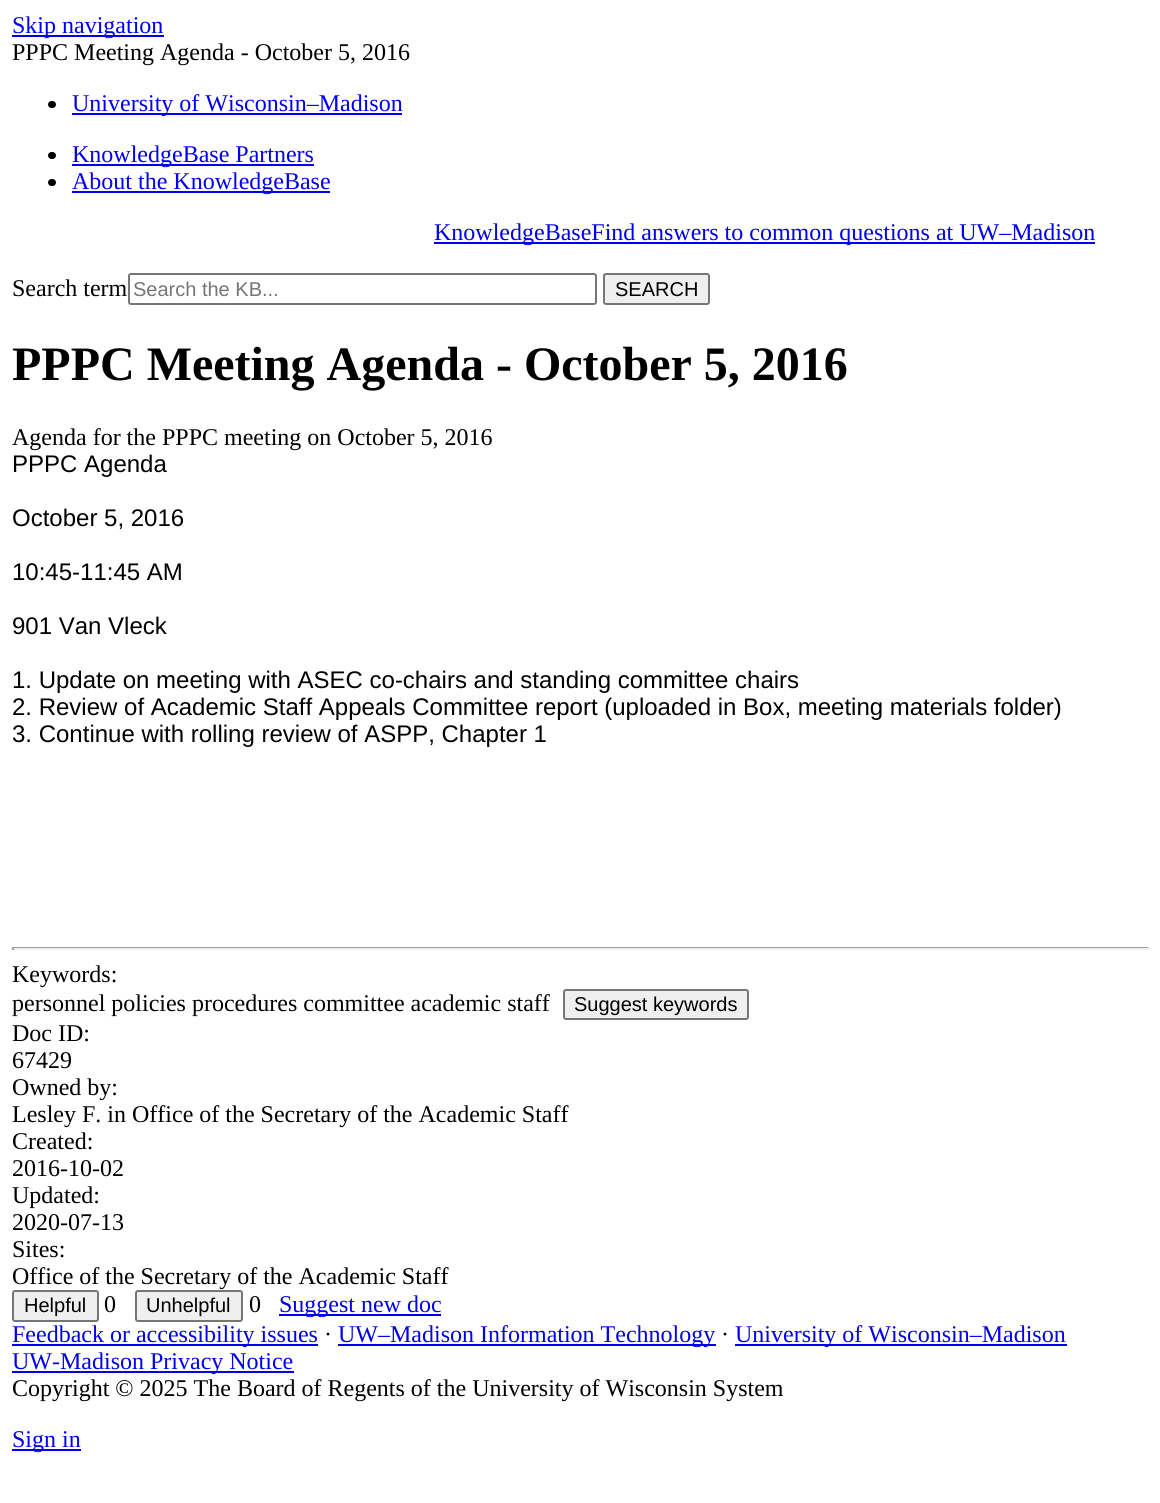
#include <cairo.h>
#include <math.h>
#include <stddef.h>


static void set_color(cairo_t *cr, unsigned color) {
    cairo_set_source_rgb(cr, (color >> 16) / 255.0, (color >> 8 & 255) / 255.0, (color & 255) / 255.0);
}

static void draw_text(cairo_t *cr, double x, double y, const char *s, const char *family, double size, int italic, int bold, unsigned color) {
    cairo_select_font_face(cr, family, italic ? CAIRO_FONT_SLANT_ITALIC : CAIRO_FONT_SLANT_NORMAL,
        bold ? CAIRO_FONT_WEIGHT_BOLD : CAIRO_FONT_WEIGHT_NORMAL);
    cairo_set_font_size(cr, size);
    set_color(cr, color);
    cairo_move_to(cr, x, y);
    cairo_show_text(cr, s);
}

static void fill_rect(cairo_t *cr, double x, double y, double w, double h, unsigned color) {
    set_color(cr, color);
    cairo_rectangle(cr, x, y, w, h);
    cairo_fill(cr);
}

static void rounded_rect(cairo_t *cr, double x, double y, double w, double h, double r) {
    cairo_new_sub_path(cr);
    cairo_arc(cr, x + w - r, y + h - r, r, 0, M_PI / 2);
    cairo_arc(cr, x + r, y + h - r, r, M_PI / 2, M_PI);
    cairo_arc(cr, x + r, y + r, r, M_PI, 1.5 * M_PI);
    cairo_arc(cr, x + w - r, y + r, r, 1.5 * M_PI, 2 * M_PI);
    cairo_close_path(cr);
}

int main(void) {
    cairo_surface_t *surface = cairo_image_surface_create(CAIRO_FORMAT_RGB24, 1160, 1503);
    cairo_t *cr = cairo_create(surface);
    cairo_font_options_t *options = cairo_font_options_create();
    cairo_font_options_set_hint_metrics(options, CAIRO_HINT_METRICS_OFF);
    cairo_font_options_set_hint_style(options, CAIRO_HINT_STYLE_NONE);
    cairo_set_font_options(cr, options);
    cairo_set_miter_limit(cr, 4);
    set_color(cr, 0xFFFFFF);
    cairo_paint(cr);
    fill_rect(cr, 12, 35, 152, 2, 0x0000EE);
    draw_text(cr, 12, 33, "Skip navigation", "Liberation Serif", 24, 0, 0, 0x0000EE);
    draw_text(cr, 12, 60, "PPPC Meeting Agenda - October 5, 2016", "Liberation Serif", 24, 0, 0, 0x000000);
    rounded_rect(cr, 48, 101, 8, 7, 3.5);
    cairo_fill(cr);
    fill_rect(cr, 72, 113, 330, 2, 0x0000EE);
    draw_text(cr, 72, 111, "University of Wisconsin–Madison", "Liberation Serif", 24, 0, 0, 0x0000EE);
    set_color(cr, 0x000000);
    rounded_rect(cr, 48, 152, 8, 7, 3.5);
    cairo_fill(cr);
    fill_rect(cr, 72, 164, 242, 2, 0x0000EE);
    draw_text(cr, 72, 162, "KnowledgeBase Partners", "Liberation Serif", 24, 0, 0, 0x0000EE);
    set_color(cr, 0x000000);
    rounded_rect(cr, 48, 179, 8, 7, 3.5);
    cairo_fill(cr);
    fill_rect(cr, 72, 191, 258, 2, 0x0000EE);
    draw_text(cr, 72, 189, "About the KnowledgeBase", "Liberation Serif", 24, 0, 0, 0x0000EE);
    fill_rect(cr, 434, 242, 661, 2, 0x0000EE);
    draw_text(cr, 434, 240, "KnowledgeBaseFind answers to common questions at UW–Madison", "Liberation Serif", 24, 0, 0, 0x0000EE);
    draw_text(cr, 12, 296, "Search term", "Liberation Serif", 24, 0, 0, 0x000000);
    rounded_rect(cr, 129, 274, 467, 30, 2);
    set_color(cr, 0x767676);
    cairo_stroke(cr);
    draw_text(cr, 133, 296, "Search the KB...", "Liberation Sans", 20, 0, 0, 0x757575);
    set_color(cr, 0xEFEFEF);
    rounded_rect(cr, 604, 274, 105, 30, 2);
    cairo_fill_preserve(cr);
    set_color(cr, 0x767676);
    cairo_stroke(cr);
    draw_text(cr, 615, 296, "SEARCH", "Liberation Sans", 20, 0, 0, 0x000000);
    draw_text(cr, 12, 380, "PPPC Meeting Agenda - October 5, 2016", "Liberation Serif", 48, 0, 1, 0x000000);
    draw_text(cr, 12, 445, "Agenda for the PPPC meeting on October 5, 2016", "Liberation Serif", 24, 0, 0, 0x000000);
    draw_text(cr, 12, 472, "PPPC Agenda", "Liberation Sans", 24, 0, 0, 0x000000);
    draw_text(cr, 12, 526, "October 5, 2016", "Liberation Sans", 24, 0, 0, 0x000000);
    draw_text(cr, 12, 580, "10:45-11:45 AM", "Liberation Sans", 24, 0, 0, 0x000000);
    draw_text(cr, 12, 634, "901 Van Vleck", "Liberation Sans", 24, 0, 0, 0x000000);
    draw_text(cr, 12, 688, "1. Update on meeting with ASEC co-chairs and standing committee chairs", "Liberation Sans", 24, 0, 0, 0x000000);
    draw_text(cr, 12, 715, "2. Review of Academic Staff Appeals Committee report (uploaded in Box, meeting materials folder)", "Liberation Sans", 24, 0, 0, 0x000000);
    draw_text(cr, 12, 742, "3. Continue with rolling review of ASPP, Chapter 1", "Liberation Sans", 24, 0, 0, 0x000000);
    fill_rect(cr, 12, 947, 1137, 1, 0x9F9F9F);
    fill_rect(cr, 1148, 947, 2, 3, 0xEEEEEE);
    fill_rect(cr, 12, 948, 1137, 2, 0xEEEEEE);
    fill_rect(cr, 12, 947, 2, 3, 0x9F9F9F);
    draw_text(cr, 12, 982, "Keywords:", "Liberation Serif", 24, 0, 0, 0x000000);
    draw_text(cr, 12, 1011, "personnel policies procedures committee academic staff", "Liberation Serif", 24, 0, 0, 0x000000);
    set_color(cr, 0xEFEFEF);
    rounded_rect(cr, 564, 990, 184, 29, 2);
    cairo_fill_preserve(cr);
    set_color(cr, 0x767676);
    cairo_stroke(cr);
    draw_text(cr, 574, 1011, "Suggest keywords", "Liberation Sans", 20, 0, 0, 0x000000);
    draw_text(cr, 12, 1041, "Doc ID:", "Liberation Serif", 24, 0, 0, 0x000000);
    draw_text(cr, 12, 1068, "67429", "Liberation Serif", 24, 0, 0, 0x000000);
    draw_text(cr, 12, 1095, "Owned by:", "Liberation Serif", 24, 0, 0, 0x000000);
    draw_text(cr, 12, 1122, "Lesley F. in Office of the Secretary of the Academic Staff", "Liberation Serif", 24, 0, 0, 0x000000);
    draw_text(cr, 12, 1149, "Created:", "Liberation Serif", 24, 0, 0, 0x000000);
    draw_text(cr, 12, 1176, "2016-10-02", "Liberation Serif", 24, 0, 0, 0x000000);
    draw_text(cr, 12, 1203, "Updated:", "Liberation Serif", 24, 0, 0, 0x000000);
    draw_text(cr, 12, 1230, "2020-07-13", "Liberation Serif", 24, 0, 0, 0x000000);
    draw_text(cr, 12, 1257, "Sites:", "Liberation Serif", 24, 0, 0, 0x000000);
    draw_text(cr, 12, 1284, "Office of the Secretary of the Academic Staff", "Liberation Serif", 24, 0, 0, 0x000000);
    set_color(cr, 0xEFEFEF);
    rounded_rect(cr, 13, 1291, 85, 30, 2);
    cairo_fill_preserve(cr);
    set_color(cr, 0x767676);
    cairo_stroke(cr);
    draw_text(cr, 24, 1312, "Helpful", "Liberation Sans", 20, 0, 0, 0x000000);
    draw_text(cr, 104, 1312, "0", "Liberation Serif", 24, 0, 0, 0x000000);
    set_color(cr, 0xEFEFEF);
    rounded_rect(cr, 136, 1291, 106, 30, 2);
    cairo_fill_preserve(cr);
    set_color(cr, 0x767676);
    cairo_stroke(cr);
    draw_text(cr, 146, 1312, "Unhelpful", "Liberation Sans", 20, 0, 0, 0x000000);
    draw_text(cr, 249, 1312, "0", "Liberation Serif", 24, 0, 0, 0x000000);
    fill_rect(cr, 279, 1314, 162, 2, 0x0000EE);
    draw_text(cr, 279, 1312, "Suggest new doc", "Liberation Serif", 24, 0, 0, 0x0000EE);
    fill_rect(cr, 12, 1344, 306, 2, 0x0000EE);
    draw_text(cr, 12, 1342, "Feedback or accessibility issues", "Liberation Serif", 24, 0, 0, 0x0000EE);
    draw_text(cr, 324, 1342, "·", "Liberation Serif", 24, 0, 0, 0x000000);
    fill_rect(cr, 338, 1344, 378, 2, 0x0000EE);
    draw_text(cr, 338, 1342, "UW–Madison Information Technology", "Liberation Serif", 24, 0, 0, 0x0000EE);
    draw_text(cr, 721, 1342, "·", "Liberation Serif", 24, 0, 0, 0x000000);
    fill_rect(cr, 735, 1344, 332, 2, 0x0000EE);
    draw_text(cr, 735, 1342, "University of Wisconsin–Madison", "Liberation Serif", 24, 0, 0, 0x0000EE);
    fill_rect(cr, 12, 1371, 282, 2, 0x0000EE);
    draw_text(cr, 12, 1369, "UW-Madison Privacy Notice", "Liberation Serif", 24, 0, 0, 0x0000EE);
    draw_text(cr, 12, 1396, "Copyright © 2025 The Board of Regents of the University of Wisconsin System", "Liberation Serif", 24, 0, 0, 0x000000);
    fill_rect(cr, 12, 1449, 69, 2, 0x0000EE);
    draw_text(cr, 12, 1447, "Sign in", "Liberation Serif", 24, 0, 0, 0x0000EE);
    cairo_surface_write_to_png(surface, "output.png");
    cairo_font_options_destroy(options);
    cairo_destroy(cr);
    cairo_surface_destroy(surface);
    return 0;
}
